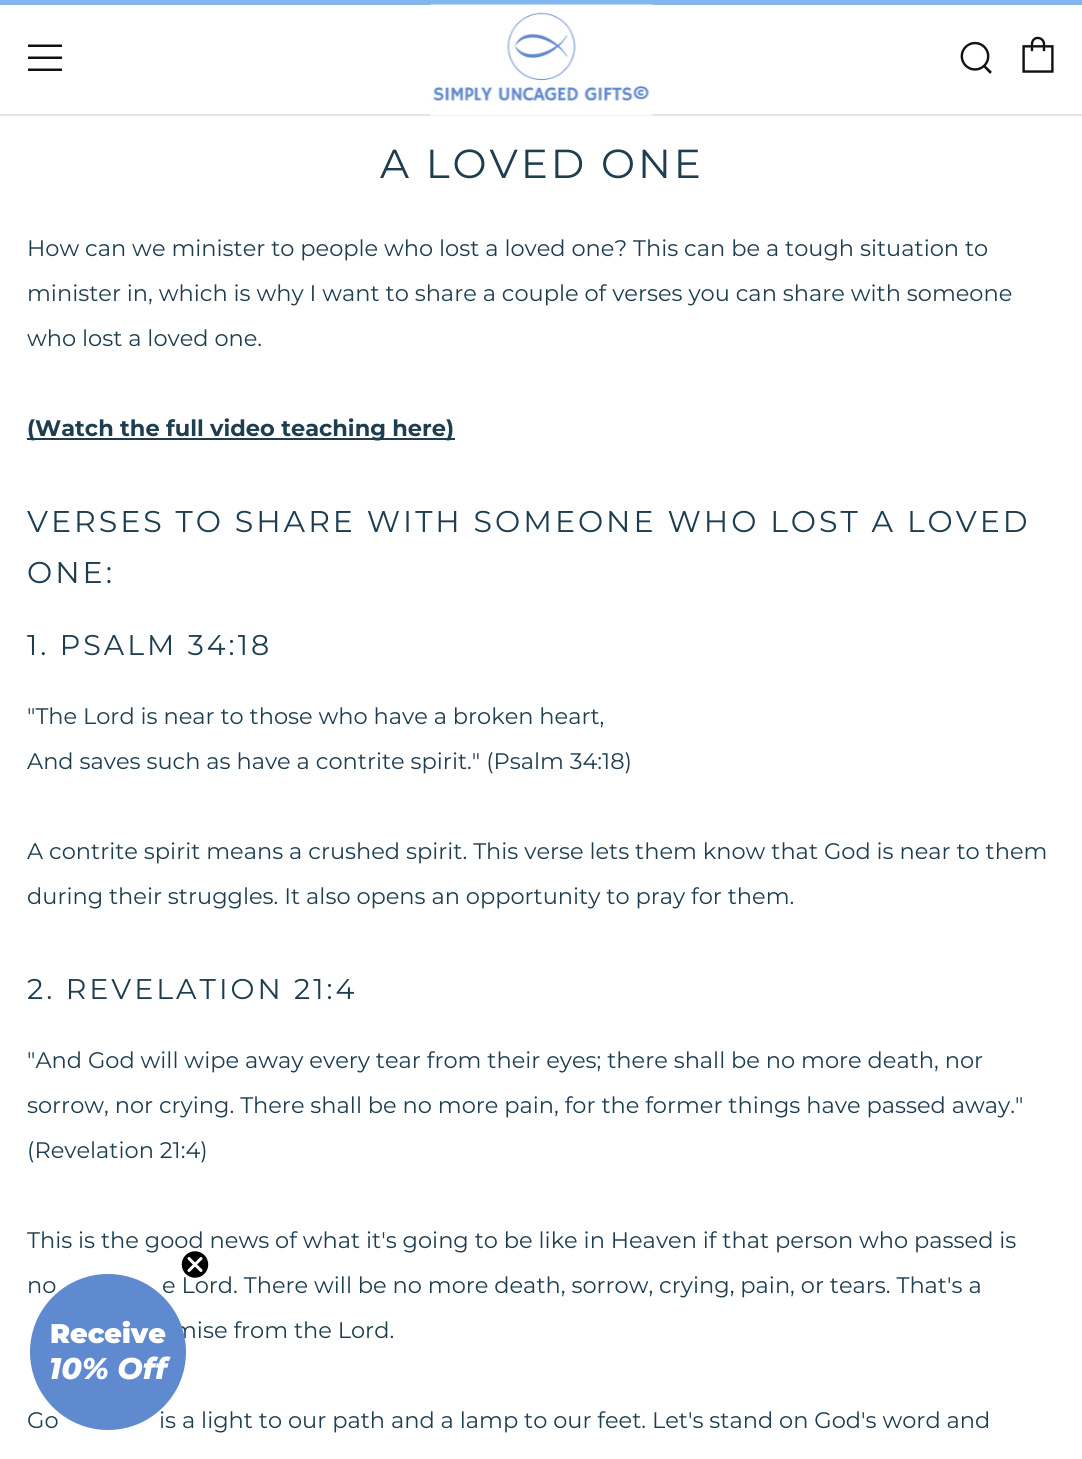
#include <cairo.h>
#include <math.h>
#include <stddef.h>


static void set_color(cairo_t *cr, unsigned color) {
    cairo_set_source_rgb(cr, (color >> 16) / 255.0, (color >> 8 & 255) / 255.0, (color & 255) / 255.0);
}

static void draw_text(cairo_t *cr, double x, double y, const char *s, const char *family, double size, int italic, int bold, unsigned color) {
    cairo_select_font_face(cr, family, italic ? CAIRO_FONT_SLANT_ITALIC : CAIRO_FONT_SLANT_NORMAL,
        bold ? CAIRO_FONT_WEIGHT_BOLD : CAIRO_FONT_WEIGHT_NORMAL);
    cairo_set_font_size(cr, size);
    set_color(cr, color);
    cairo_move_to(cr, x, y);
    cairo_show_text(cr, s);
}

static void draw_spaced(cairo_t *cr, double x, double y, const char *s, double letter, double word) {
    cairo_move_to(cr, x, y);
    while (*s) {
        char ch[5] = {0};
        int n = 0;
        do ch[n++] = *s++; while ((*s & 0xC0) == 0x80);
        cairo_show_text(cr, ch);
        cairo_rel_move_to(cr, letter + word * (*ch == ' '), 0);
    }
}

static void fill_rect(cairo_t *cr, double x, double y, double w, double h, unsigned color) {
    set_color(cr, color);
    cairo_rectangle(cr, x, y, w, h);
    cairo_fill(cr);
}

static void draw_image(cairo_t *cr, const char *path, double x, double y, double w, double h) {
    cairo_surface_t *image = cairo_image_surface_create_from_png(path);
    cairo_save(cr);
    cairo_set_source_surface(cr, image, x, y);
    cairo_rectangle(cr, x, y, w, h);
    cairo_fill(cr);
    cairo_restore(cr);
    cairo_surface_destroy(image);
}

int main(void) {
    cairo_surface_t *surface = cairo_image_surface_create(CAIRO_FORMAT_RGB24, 1082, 1459);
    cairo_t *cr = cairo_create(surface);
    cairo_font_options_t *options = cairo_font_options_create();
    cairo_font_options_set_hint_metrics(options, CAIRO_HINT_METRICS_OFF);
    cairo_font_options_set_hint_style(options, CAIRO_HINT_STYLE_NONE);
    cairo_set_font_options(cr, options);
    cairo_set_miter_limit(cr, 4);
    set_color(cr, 0xFFFFFF);
    cairo_paint(cr);
    fill_rect(cr, 0, 114, 1082, 2, 0xE4E4E4);
    fill_rect(cr, 0, 0, 1082, 5, 0x81B7ED);
    set_color(cr, 0x111111);
    cairo_new_path(cr);
    cairo_move_to(cr, 28, 47);
    cairo_line_to(cr, 62, 47);
    cairo_line_to(cr, 62, 44.5);
    cairo_line_to(cr, 28, 44.5);
    cairo_close_path(cr);
    cairo_move_to(cr, 28, 71);
    cairo_line_to(cr, 62, 71);
    cairo_line_to(cr, 62, 68.5);
    cairo_line_to(cr, 28, 68.5);
    cairo_close_path(cr);
    cairo_move_to(cr, 28, 59);
    cairo_line_to(cr, 62, 59);
    cairo_line_to(cr, 62, 56.5);
    cairo_line_to(cr, 28, 56.5);
    cairo_close_path(cr);
    cairo_fill(cr);
    draw_image(cr, "assets/img1.png", 430, 4, 223, 112);
    draw_image(cr, "assets/img2.png", 960, 41, 32, 33);
    draw_image(cr, "assets/img3.png", 1022, 36, 32, 37);
    cairo_select_font_face(cr, "Montserrat", CAIRO_FONT_SLANT_NORMAL, CAIRO_FONT_WEIGHT_NORMAL);
    cairo_set_font_size(cr, 40.5);
    set_color(cr, 0x1E3E50);
    draw_spaced(cr, 380, 178, "A LOVED ONE", 3, 0);
    draw_text(cr, 27, 256, "How can we minister to people who lost a loved one? This can be a tough situation to", "Montserrat", 22.5, 0, 0, 0x1E3E50);
    draw_text(cr, 27, 301, "minister in, which is why I want to share a couple of verses you can share with someone", "Montserrat", 22.5, 0, 0, 0x1E3E50);
    draw_text(cr, 27, 346, "who lost a loved one.", "Montserrat", 22.5, 0, 0, 0x1E3E50);
    fill_rect(cr, 27, 438, 428, 2, 0x1E3E50);
    draw_text(cr, 27, 436, "(Watch the full video teaching here)", "Montserrat", 22.5, 0, 1, 0x1E3E50);
    cairo_select_font_face(cr, "Montserrat", CAIRO_FONT_SLANT_NORMAL, CAIRO_FONT_WEIGHT_NORMAL);
    cairo_set_font_size(cr, 30);
    draw_spaced(cr, 27, 532, "VERSES TO SHARE WITH SOMEONE WHO LOST A LOVED", 3, 0);
    draw_spaced(cr, 27, 583, "ONE:", 3, 0);
    cairo_set_font_size(cr, 28.5);
    draw_spaced(cr, 27, 655, "1. PSALM 34:18", 3, 0);
    draw_text(cr, 27, 724, "\"The Lord is near to those who have a broken heart,", "Montserrat", 22.5, 0, 0, 0x1E3E50);
    draw_text(cr, 27, 769, "And saves such as have a contrite spirit.\" (Psalm 34:18)", "Montserrat", 22.5, 0, 0, 0x1E3E50);
    draw_text(cr, 27, 859, "A contrite spirit means a crushed spirit. This verse lets them know that God is near to them", "Montserrat", 22.5, 0, 0, 0x1E3E50);
    draw_text(cr, 27, 904, "during their struggles. It also opens an opportunity to pray for them.", "Montserrat", 22.5, 0, 0, 0x1E3E50);
    cairo_set_font_size(cr, 28.5);
    draw_spaced(cr, 27, 999, "2. REVELATION 21:4", 3, 0);
    draw_text(cr, 27, 1068, "\"And God will wipe away every tear from their eyes; there shall be no more death, nor", "Montserrat", 22.5, 0, 0, 0x1E3E50);
    draw_text(cr, 27, 1113, "sorrow, nor crying. There shall be no more pain, for the former things have passed away.\"", "Montserrat", 22.5, 0, 0, 0x1E3E50);
    draw_text(cr, 27, 1158, "(Revelation 21:4)", "Montserrat", 22.5, 0, 0, 0x1E3E50);
    draw_text(cr, 27, 1248, "This is the good news of what it's going to be like in Heaven if that person who passed is", "Montserrat", 22.5, 0, 0, 0x1E3E50);
    draw_text(cr, 27, 1293, "no", "Montserrat", 22.5, 0, 0, 0x1E3E50);
    draw_text(cr, 162, 1293, "e Lord. There will be no more death, sorrow, crying, pain, or tears. That's a", "Montserrat", 22.5, 0, 0, 0x1E3E50);
    draw_text(cr, 173, 1338, "mise from the Lord.", "Montserrat", 22.5, 0, 0, 0x1E3E50);
    draw_text(cr, 27, 1428, "Go", "Montserrat", 22.5, 0, 0, 0x1E3E50);
    draw_text(cr, 159, 1428, "is a light to our path and a lamp to our feet. Let's stand on God's word and", "Montserrat", 22.5, 0, 0, 0x1E3E50);
    set_color(cr, 0x608AD0);
    cairo_new_path(cr);
    cairo_arc(cr, 108, 1352, 78, 0, 2 * M_PI);
    cairo_fill(cr);
    set_color(cr, 0x000000);
    cairo_arc(cr, 195, 1264.5, 14, 0, 2 * M_PI);
    cairo_fill(cr);
    cairo_save(cr);
    cairo_rectangle(cr, 180, 1250, 30, 30);
    cairo_clip(cr);
    cairo_arc(cr, 195, 1264.5, 14, 0, 2 * M_PI);
    set_color(cr, 0xFFFFFF);
    cairo_set_line_width(cr, 1.5);
    cairo_stroke(cr);
    cairo_restore(cr);
    cairo_new_path(cr);
    cairo_move_to(cr, 189, 1258.5);
    cairo_line_to(cr, 201, 1270.5);
    cairo_move_to(cr, 189, 1270.5);
    cairo_line_to(cr, 201, 1258.5);
    cairo_close_path(cr);
    set_color(cr, 0xFFFFFF);
    cairo_set_line_width(cr, 3);
    cairo_set_line_cap(cr, CAIRO_LINE_CAP_ROUND);
    cairo_set_line_join(cr, CAIRO_LINE_JOIN_ROUND);
    cairo_stroke(cr);
    draw_text(cr, 50, 1343, "Receive", "Montserrat Black", 27, 0, 0, 0xFFFFFF);
    draw_text(cr, 49, 1379, "10% Off", "Montserrat ExtraBold", 30, 1, 0, 0xFFFFFF);
    cairo_surface_write_to_png(surface, "output.png");
    cairo_font_options_destroy(options);
    cairo_destroy(cr);
    cairo_surface_destroy(surface);
    return 0;
}
